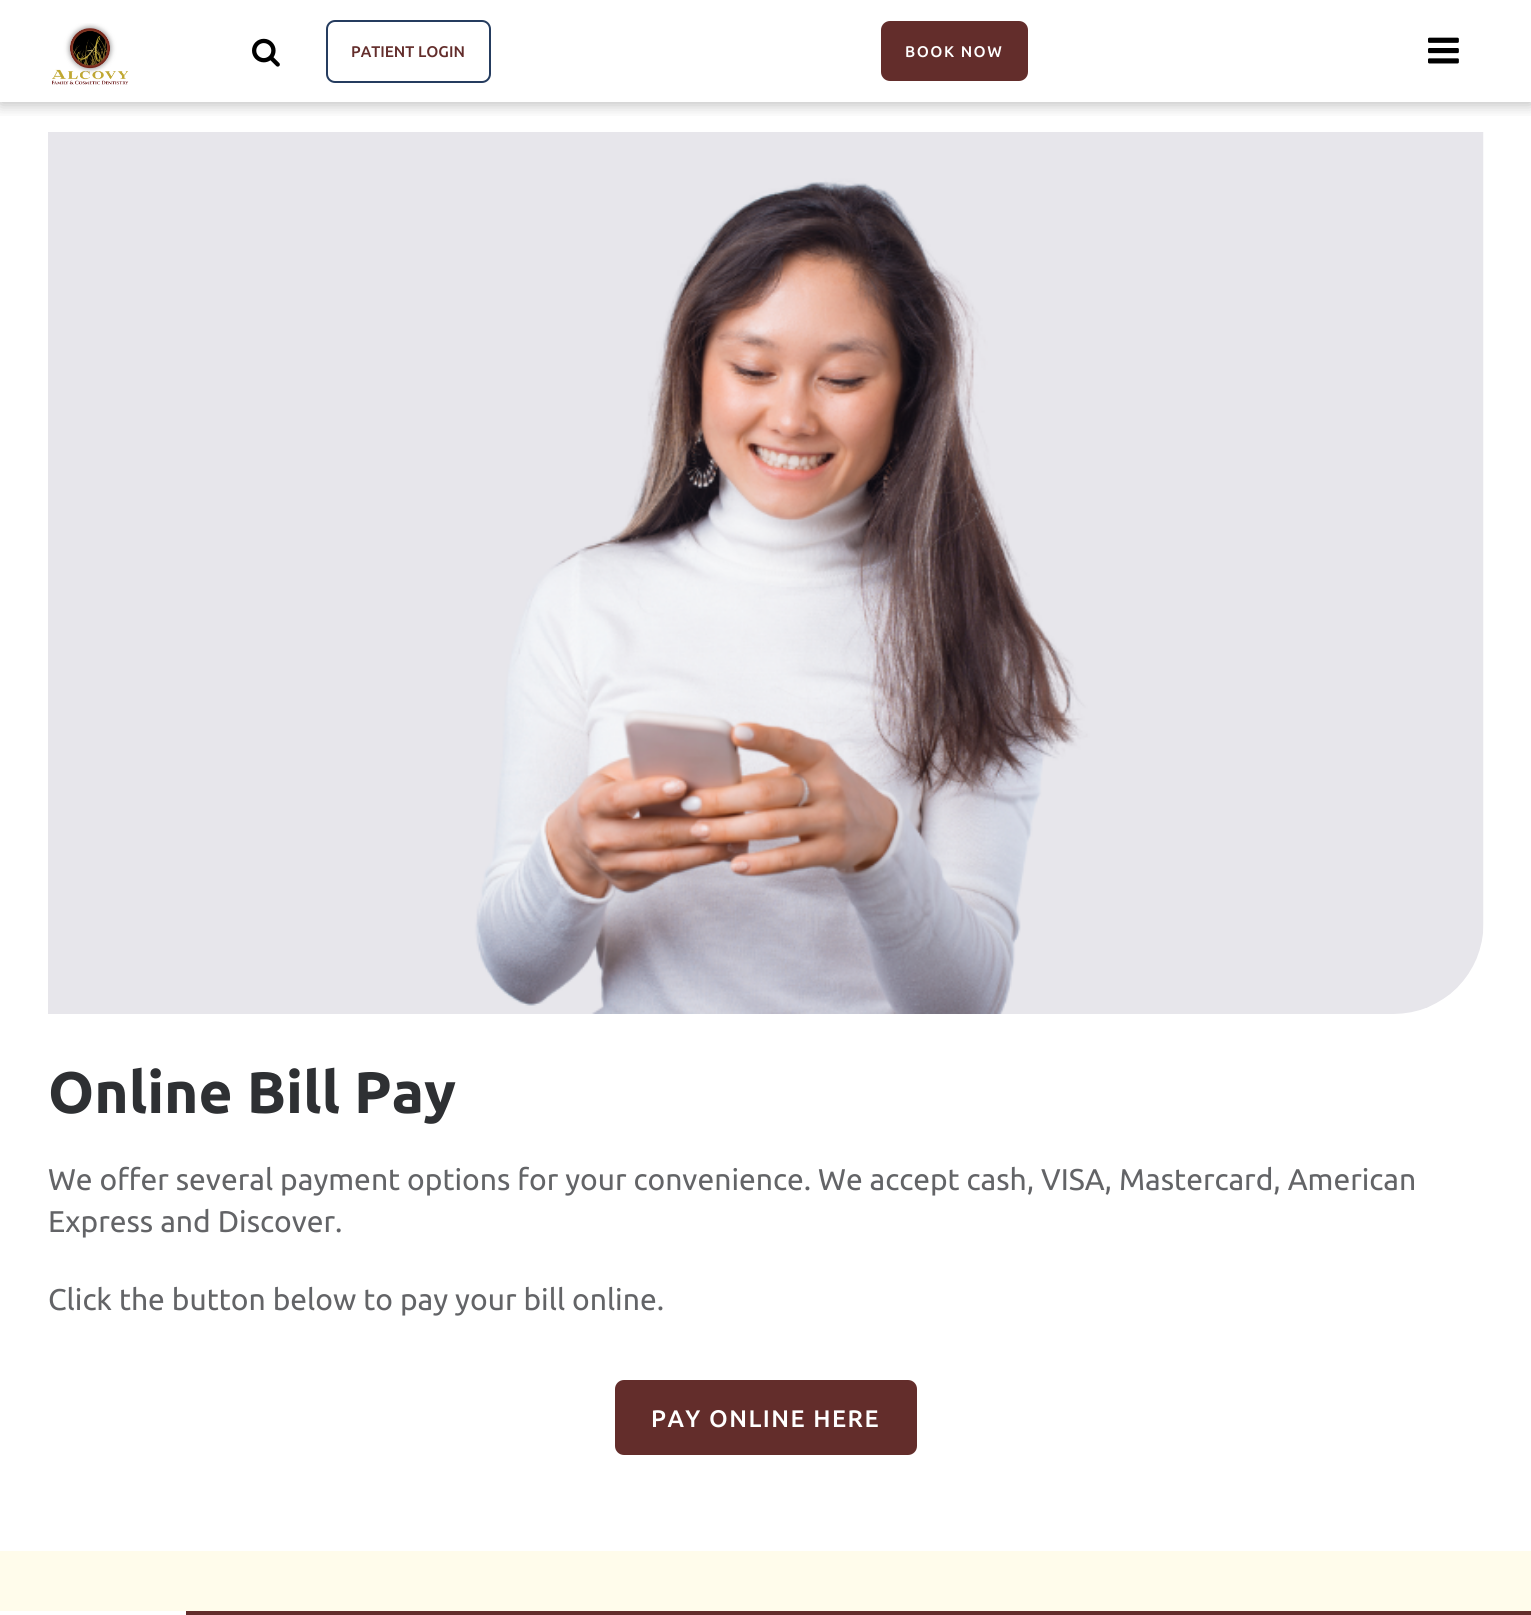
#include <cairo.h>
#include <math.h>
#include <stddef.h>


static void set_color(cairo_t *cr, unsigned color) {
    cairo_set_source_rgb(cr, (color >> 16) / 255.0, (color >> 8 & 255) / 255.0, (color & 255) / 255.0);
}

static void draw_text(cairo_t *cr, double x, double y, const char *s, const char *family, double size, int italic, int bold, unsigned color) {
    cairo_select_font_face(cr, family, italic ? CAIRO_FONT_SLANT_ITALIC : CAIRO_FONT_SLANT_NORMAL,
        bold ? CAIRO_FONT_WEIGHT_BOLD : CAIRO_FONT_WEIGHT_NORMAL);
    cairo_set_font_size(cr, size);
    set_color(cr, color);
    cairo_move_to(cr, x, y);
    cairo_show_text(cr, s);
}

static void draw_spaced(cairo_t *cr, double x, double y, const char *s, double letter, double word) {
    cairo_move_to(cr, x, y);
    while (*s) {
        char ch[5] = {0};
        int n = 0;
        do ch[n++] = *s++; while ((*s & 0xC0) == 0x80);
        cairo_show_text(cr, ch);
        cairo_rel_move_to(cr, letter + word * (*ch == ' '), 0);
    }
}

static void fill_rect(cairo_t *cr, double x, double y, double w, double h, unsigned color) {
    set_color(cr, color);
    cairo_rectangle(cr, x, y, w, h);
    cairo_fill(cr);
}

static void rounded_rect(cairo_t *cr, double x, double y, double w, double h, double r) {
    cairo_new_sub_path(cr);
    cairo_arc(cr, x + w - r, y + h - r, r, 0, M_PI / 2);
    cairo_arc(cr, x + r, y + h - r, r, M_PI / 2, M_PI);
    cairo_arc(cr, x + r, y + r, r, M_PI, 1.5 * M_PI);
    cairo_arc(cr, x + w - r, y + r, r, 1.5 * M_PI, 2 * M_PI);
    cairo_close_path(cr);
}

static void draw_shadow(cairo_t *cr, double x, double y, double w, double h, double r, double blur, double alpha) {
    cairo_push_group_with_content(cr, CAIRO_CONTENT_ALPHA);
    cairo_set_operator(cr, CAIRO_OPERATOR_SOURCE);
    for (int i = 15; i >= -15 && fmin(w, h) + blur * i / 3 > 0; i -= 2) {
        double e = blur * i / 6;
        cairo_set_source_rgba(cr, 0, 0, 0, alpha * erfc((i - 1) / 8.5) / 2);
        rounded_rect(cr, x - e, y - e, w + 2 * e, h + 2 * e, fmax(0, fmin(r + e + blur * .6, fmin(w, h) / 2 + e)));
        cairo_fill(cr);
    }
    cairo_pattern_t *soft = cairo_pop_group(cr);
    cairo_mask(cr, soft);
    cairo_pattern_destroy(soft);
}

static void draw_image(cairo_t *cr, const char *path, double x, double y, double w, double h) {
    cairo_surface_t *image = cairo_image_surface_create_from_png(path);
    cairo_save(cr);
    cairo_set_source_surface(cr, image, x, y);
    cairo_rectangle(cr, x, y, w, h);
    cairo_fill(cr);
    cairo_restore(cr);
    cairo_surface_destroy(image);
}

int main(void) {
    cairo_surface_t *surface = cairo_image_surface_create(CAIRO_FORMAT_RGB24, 1531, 1615);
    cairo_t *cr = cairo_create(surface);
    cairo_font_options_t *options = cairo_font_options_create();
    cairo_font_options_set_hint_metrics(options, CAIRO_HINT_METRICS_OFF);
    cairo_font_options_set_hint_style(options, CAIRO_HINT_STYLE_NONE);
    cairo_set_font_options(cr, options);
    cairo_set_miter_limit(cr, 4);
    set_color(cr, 0xFFFFFF);
    cairo_paint(cr);
    cairo_save(cr);
    cairo_rectangle(cr, 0, 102, 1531, 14);
    cairo_clip(cr);
    set_color(cr, 0x000000);
    draw_shadow(cr, 0, 3, 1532, 102, 0, 7.5, 0.25);
    cairo_restore(cr);
    draw_image(cr, "assets/img1.png", 52, 23, 77, 62);
    draw_image(cr, "assets/img2.png", 252, 38, 28, 29);
    rounded_rect(cr, 327, 21, 163, 61, 8);
    set_color(cr, 0x253C5F);
    cairo_stroke(cr);
    draw_text(cr, 351, 57, "PATIENT LOGIN", "Ubuntu Medium", 15.5, 0, 0, 0x632D2B);
    rounded_rect(cr, 881, 21, 147, 60, 9);
    cairo_fill(cr);
    set_color(cr, 0xFFFFFF);
    draw_spaced(cr, 905, 57, "BOOK NOW", 1.5, 0);
    draw_image(cr, "assets/img3.png", 1428, 37, 31, 27);
    draw_image(cr, "assets/img4.png", 48, 132, 1436, 882);
    draw_text(cr, 48, 1113, "Online Bill Pay", "Ubuntu", 58.5, 0, 1, 0x2E3033);
    draw_text(cr, 48, 1190, "We offer several payment options for your convenience. We accept cash, VISA, Mastercard, American", "Ubuntu", 30, 0, 0, 0x636467);
    draw_text(cr, 48, 1232, "Express and Discover.", "Ubuntu", 30, 0, 0, 0x636467);
    draw_text(cr, 48, 1310, "Click the button below to pay your bill online.", "Ubuntu", 30, 0, 0, 0x636467);
    set_color(cr, 0x632D2B);
    rounded_rect(cr, 615, 1380, 302, 75, 9);
    cairo_fill(cr);
    cairo_select_font_face(cr, "Ubuntu Medium", CAIRO_FONT_SLANT_NORMAL, CAIRO_FONT_WEIGHT_NORMAL);
    cairo_set_font_size(cr, 24);
    set_color(cr, 0xFFFFFF);
    draw_spaced(cr, 651, 1427, "PAY ONLINE HERE", 1.5, 0);
    fill_rect(cr, 0, 1551, 1531, 60, 0xFFFCEB);
    fill_rect(cr, 186, 1611, 1345, 4, 0x632D2B);
    cairo_surface_write_to_png(surface, "output.png");
    cairo_font_options_destroy(options);
    cairo_destroy(cr);
    cairo_surface_destroy(surface);
    return 0;
}
